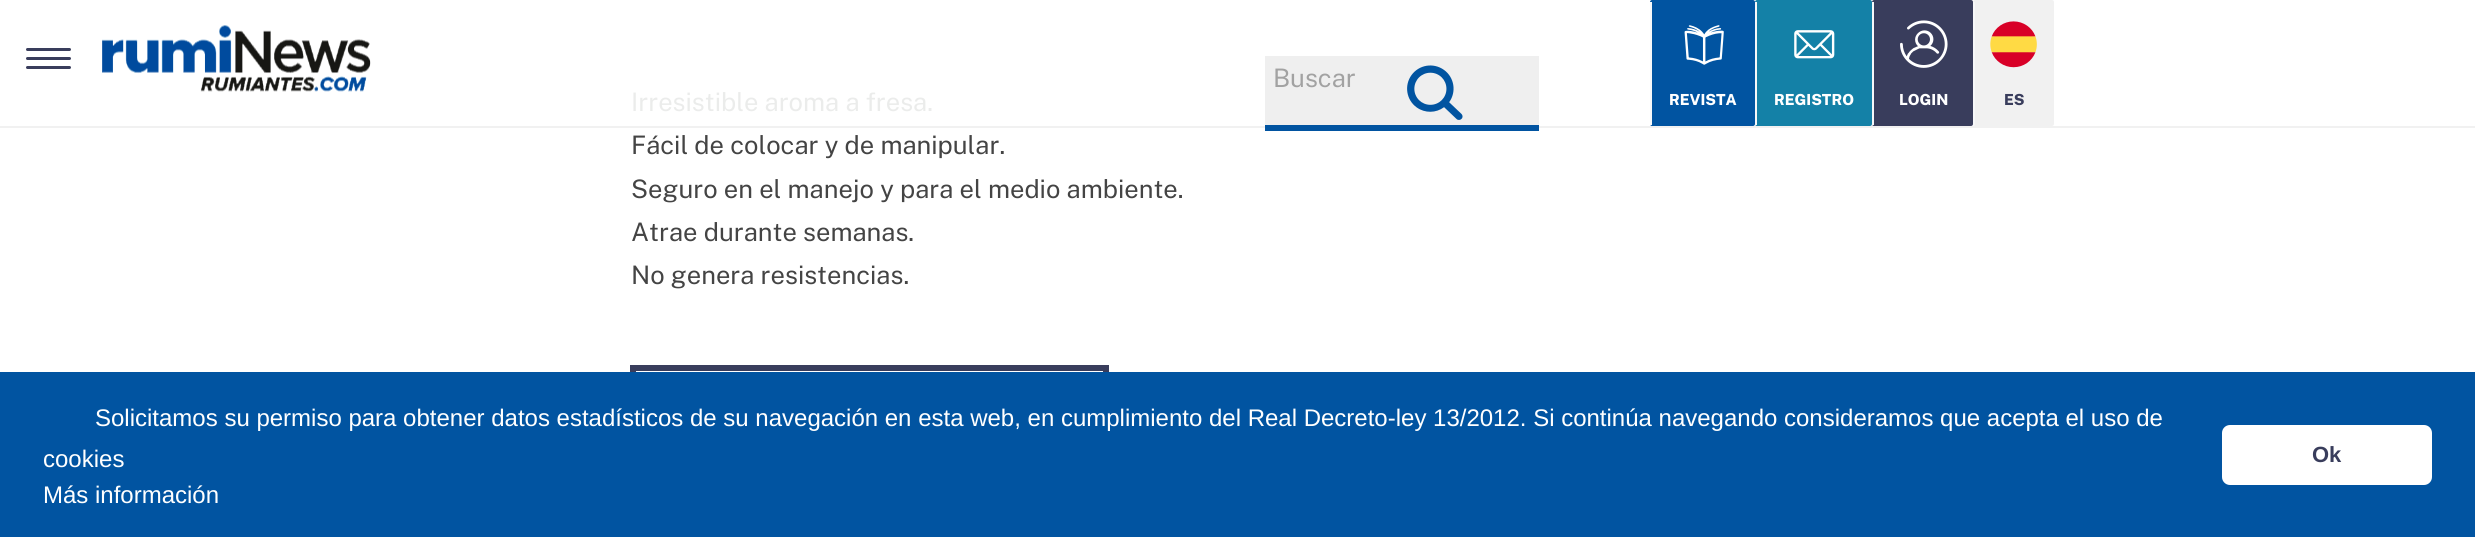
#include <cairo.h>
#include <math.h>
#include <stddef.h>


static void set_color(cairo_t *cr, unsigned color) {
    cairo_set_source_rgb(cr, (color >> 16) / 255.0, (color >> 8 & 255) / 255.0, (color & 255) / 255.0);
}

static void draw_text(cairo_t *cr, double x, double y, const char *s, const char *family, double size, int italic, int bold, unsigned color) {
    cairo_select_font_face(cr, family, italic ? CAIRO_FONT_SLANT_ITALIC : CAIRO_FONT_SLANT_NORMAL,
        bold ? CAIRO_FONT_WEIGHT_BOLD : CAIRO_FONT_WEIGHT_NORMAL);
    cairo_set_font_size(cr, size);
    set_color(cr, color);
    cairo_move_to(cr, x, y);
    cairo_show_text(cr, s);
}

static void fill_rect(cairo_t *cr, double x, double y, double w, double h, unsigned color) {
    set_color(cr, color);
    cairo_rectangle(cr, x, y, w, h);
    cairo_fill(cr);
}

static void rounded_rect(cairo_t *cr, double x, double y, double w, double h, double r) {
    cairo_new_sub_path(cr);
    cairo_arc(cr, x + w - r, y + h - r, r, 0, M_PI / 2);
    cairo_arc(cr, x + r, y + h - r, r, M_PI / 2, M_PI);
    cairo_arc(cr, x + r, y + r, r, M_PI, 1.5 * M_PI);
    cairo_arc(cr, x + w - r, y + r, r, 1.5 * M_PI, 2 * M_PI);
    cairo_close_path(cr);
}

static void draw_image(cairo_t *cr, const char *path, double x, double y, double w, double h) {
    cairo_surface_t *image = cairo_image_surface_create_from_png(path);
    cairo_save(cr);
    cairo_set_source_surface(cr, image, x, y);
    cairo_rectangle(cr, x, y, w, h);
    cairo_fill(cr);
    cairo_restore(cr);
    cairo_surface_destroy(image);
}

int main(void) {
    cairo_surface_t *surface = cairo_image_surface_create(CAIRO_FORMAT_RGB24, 2475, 537);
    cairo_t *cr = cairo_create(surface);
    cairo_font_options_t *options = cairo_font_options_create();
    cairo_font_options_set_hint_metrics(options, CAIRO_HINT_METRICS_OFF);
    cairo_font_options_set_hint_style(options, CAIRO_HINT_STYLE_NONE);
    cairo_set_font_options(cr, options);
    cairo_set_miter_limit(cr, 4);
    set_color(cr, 0xFFFFFF);
    cairo_paint(cr);
    set_color(cr, 0x393D5C);
    rounded_rect(cr, 26, 57, 45, 3, 1.5);
    cairo_fill(cr);
    rounded_rect(cr, 26, 48, 45, 3, 1.5);
    cairo_fill(cr);
    rounded_rect(cr, 26, 66, 45, 3, 1.5);
    cairo_fill(cr);
    fill_rect(cr, 0, 126, 2475, 2, 0xF1F1F1);
    draw_image(cr, "assets/img1.png", 102, 25, 269, 67);
    fill_rect(cr, 1265, 56, 274, 69, 0xEFEFEF);
    fill_rect(cr, 1265, 125, 274, 6, 0x0154A1);
    draw_text(cr, 1273, 87, "Buscar", "Public Sans", 25.5, 0, 0, 0xA2A2A2);
    draw_image(cr, "assets/img2.png", 1407, 65, 56, 55);
    set_color(cr, 0x0154A1);
    rounded_rect(cr, 1650, 0, 105, 126, 2);
    cairo_fill(cr);
    fill_rect(cr, 1650, 2, 2, 123, 0xF7F8F9);
    draw_image(cr, "assets/img3.png", 1684, 25, 40, 40);
    draw_text(cr, 1669, 105, "REVISTA", "Public Sans ExtraBold", 15.25, 0, 0, 0xFFFFFF);
    set_color(cr, 0x1481A7);
    rounded_rect(cr, 1755, 0, 117, 126, 2);
    cairo_fill(cr);
    fill_rect(cr, 1755, 2, 2, 123, 0xF7F8F9);
    draw_image(cr, "assets/img4.png", 1794, 30, 41, 29);
    draw_text(cr, 1774, 105, "REGISTRO", "Public Sans ExtraBold", 15.25, 0, 0, 0xFFFFFF);
    set_color(cr, 0x393D5C);
    rounded_rect(cr, 1872, 0, 101, 126, 2);
    cairo_fill(cr);
    fill_rect(cr, 1872, 2, 2, 123, 0xF7F8F9);
    draw_image(cr, "assets/img5.png", 1900, 20, 48, 48);
    draw_text(cr, 1899, 105, "LOGIN", "Public Sans ExtraBold", 15.25, 0, 0, 0xFFFFFF);
    set_color(cr, 0xF1F1F1);
    rounded_rect(cr, 1973, 0, 81, 126, 2);
    cairo_fill(cr);
    fill_rect(cr, 1973, 2, 2, 123, 0xF7F8F9);
    draw_image(cr, "assets/img6.png", 1990, 21, 47, 47);
    draw_text(cr, 2004, 105, "ES", "Public Sans ExtraBold", 15.25, 0, 0, 0x393D5C);
    draw_text(cr, 631, 111, "Irresistible aroma a fresa.", "Public Sans", 25.5, 0, 0, 0xEBECEB);
    draw_text(cr, 631, 154, "Fácil de colocar y de manipular.", "Public Sans", 25.5, 0, 0, 0x444444);
    draw_text(cr, 631, 198, "Seguro en el manejo y para el medio ambiente.", "Public Sans", 25.5, 0, 0, 0x444444);
    draw_text(cr, 631, 241, "Atrae durante semanas.", "Public Sans", 25.5, 0, 0, 0x444444);
    draw_text(cr, 631, 284, "No genera resistencias.", "Public Sans", 25.5, 0, 0, 0x444444);
    cairo_rectangle(cr, 633, 368, 473, 84);
    set_color(cr, 0x393D5C);
    cairo_set_line_width(cr, 6);
    cairo_stroke(cr);
    fill_rect(cr, 0, 372, 2475, 165, 0x0154A1);
    draw_text(cr, 95, 426, "Solicitamos su permiso para obtener datos estadísticos de su navegación en esta web, en cumplimiento del Real Decreto-ley 13/2012. Si continúa navegando consideramos que acepta el uso de", "Liberation Sans", 24, 0, 0, 0xFFFFFF);
    draw_text(cr, 43, 467, "cookies", "Liberation Sans", 24, 0, 0, 0xFFFFFF);
    draw_text(cr, 43, 503, "Más información", "Liberation Sans", 24, 0, 0, 0xFFFFFF);
    rounded_rect(cr, 2222, 425, 210, 60, 8);
    cairo_fill(cr);
    draw_text(cr, 2312, 462, "Ok", "Liberation Sans", 22, 0, 1, 0x393D5C);
    cairo_surface_write_to_png(surface, "output.png");
    cairo_font_options_destroy(options);
    cairo_destroy(cr);
    cairo_surface_destroy(surface);
    return 0;
}
